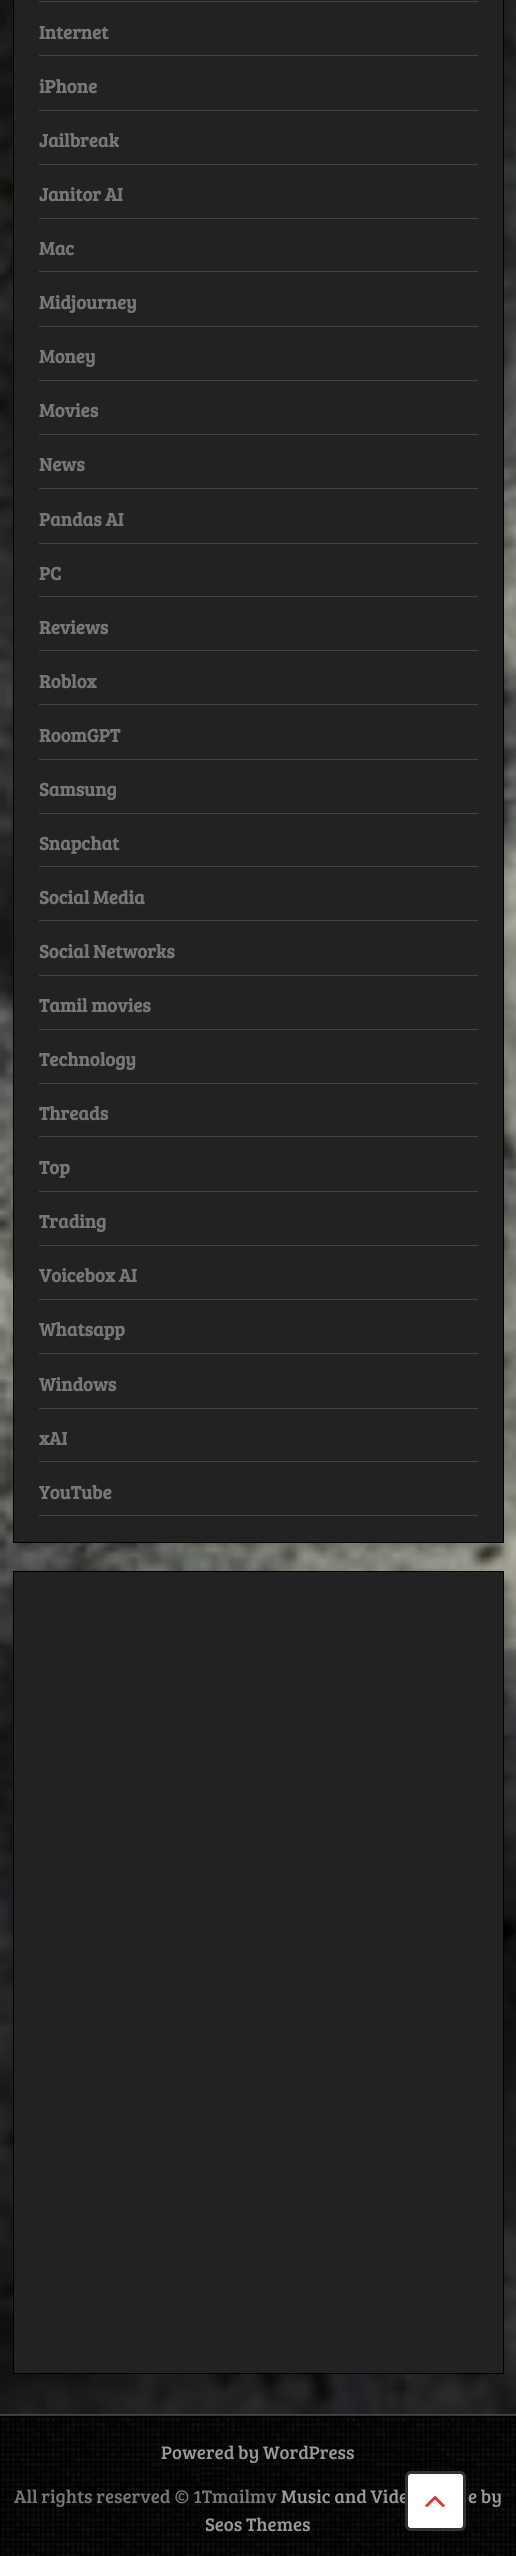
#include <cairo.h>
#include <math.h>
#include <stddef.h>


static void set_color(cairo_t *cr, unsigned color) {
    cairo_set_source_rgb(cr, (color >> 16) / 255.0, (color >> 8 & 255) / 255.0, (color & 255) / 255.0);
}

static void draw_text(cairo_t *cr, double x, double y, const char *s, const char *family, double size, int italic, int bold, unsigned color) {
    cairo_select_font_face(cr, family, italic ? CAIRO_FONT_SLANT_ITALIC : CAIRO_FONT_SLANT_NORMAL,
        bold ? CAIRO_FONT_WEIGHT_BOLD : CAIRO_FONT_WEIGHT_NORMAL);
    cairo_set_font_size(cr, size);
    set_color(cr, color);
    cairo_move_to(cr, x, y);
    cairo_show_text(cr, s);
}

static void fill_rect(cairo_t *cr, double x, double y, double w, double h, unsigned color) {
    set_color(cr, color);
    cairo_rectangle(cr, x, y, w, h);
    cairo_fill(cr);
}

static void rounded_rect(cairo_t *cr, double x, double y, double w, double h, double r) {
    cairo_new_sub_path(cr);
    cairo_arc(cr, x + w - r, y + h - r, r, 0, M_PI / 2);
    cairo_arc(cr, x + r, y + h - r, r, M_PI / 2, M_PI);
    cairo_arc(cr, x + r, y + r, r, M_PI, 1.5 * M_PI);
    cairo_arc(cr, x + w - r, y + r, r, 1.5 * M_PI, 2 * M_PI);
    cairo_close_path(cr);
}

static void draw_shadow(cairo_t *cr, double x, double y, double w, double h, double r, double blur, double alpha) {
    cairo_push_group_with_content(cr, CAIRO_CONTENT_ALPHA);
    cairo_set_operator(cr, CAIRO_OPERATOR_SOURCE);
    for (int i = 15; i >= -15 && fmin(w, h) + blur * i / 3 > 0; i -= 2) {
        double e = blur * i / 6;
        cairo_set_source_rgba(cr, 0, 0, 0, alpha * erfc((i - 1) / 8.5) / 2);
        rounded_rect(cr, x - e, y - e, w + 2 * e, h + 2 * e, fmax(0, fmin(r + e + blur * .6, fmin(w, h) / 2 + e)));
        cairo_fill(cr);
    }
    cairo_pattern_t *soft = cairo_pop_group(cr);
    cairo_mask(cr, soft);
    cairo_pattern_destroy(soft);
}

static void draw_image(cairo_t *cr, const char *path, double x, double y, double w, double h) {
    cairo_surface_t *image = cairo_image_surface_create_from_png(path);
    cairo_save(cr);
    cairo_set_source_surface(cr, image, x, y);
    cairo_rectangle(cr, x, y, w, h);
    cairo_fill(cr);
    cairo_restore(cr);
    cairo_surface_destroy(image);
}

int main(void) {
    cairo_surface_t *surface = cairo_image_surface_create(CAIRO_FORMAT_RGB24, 516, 2556);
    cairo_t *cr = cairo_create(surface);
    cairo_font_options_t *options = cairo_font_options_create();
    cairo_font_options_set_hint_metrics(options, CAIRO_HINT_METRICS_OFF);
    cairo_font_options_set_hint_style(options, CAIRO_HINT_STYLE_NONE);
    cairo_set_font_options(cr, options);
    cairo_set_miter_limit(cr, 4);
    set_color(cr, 0xFFFFFF);
    cairo_paint(cr);
    draw_image(cr, "assets/img1.png", 0, 0, 516, 2414);
    set_color(cr, 0x000000);
    draw_shadow(cr, 13, -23, 491, 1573, 0, 7.5, 0.18);
    set_color(cr, 0x222222);
    cairo_rectangle(cr, 13.5, -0.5, 490, 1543);
    cairo_fill_preserve(cr);
    set_color(cr, 0x000000);
    cairo_set_line_width(cr, 1);
    cairo_stroke(cr);
    fill_rect(cr, 39, 1, 439, 1, 0x444444);
    fill_rect(cr, 39, 55, 439, 1, 0x444444);
    draw_text(cr, 39, 39, "Internet", "Bree Serif", 18.75, 0, 1, 0x777777);
    fill_rect(cr, 39, 110, 439, 1, 0x444444);
    draw_text(cr, 39, 93, "iPhone", "Bree Serif", 18.75, 0, 1, 0x777777);
    fill_rect(cr, 39, 164, 439, 1, 0x444444);
    draw_text(cr, 39, 147, "Jailbreak", "Bree Serif", 18.75, 0, 1, 0x777777);
    fill_rect(cr, 39, 218, 439, 1, 0x444444);
    draw_text(cr, 39, 201, "Janitor AI", "Bree Serif", 18.75, 0, 1, 0x777777);
    fill_rect(cr, 39, 271, 439, 1, 0x444444);
    draw_text(cr, 39, 255, "Mac", "Bree Serif", 18.75, 0, 1, 0x777777);
    fill_rect(cr, 39, 326, 439, 1, 0x444444);
    draw_text(cr, 39, 309, "Midjourney", "Bree Serif", 18.75, 0, 1, 0x777777);
    fill_rect(cr, 39, 380, 439, 1, 0x444444);
    draw_text(cr, 39, 363, "Money", "Bree Serif", 18.75, 0, 1, 0x777777);
    fill_rect(cr, 39, 434, 439, 1, 0x444444);
    draw_text(cr, 39, 417, "Movies", "Bree Serif", 18.75, 0, 1, 0x777777);
    fill_rect(cr, 39, 488, 439, 1, 0x444444);
    draw_text(cr, 39, 471, "News", "Bree Serif", 18.75, 0, 1, 0x777777);
    fill_rect(cr, 39, 543, 439, 1, 0x444444);
    draw_text(cr, 39, 526, "Pandas AI", "Bree Serif", 18.75, 0, 1, 0x777777);
    fill_rect(cr, 39, 596, 439, 1, 0x444444);
    draw_text(cr, 39, 580, "PC", "Bree Serif", 18.75, 0, 1, 0x777777);
    fill_rect(cr, 39, 650, 439, 1, 0x444444);
    draw_text(cr, 39, 634, "Reviews", "Bree Serif", 18.75, 0, 1, 0x777777);
    fill_rect(cr, 39, 704, 439, 1, 0x444444);
    draw_text(cr, 39, 688, "Roblox", "Bree Serif", 18.75, 0, 1, 0x777777);
    fill_rect(cr, 39, 759, 439, 1, 0x444444);
    draw_text(cr, 39, 742, "RoomGPT", "Bree Serif", 18.75, 0, 1, 0x777777);
    fill_rect(cr, 39, 813, 439, 1, 0x444444);
    draw_text(cr, 39, 796, "Samsung", "Bree Serif", 18.75, 0, 1, 0x777777);
    fill_rect(cr, 39, 866, 439, 1, 0x444444);
    draw_text(cr, 39, 850, "Snapchat", "Bree Serif", 18.75, 0, 1, 0x777777);
    fill_rect(cr, 39, 920, 439, 1, 0x444444);
    draw_text(cr, 39, 904, "Social Media", "Bree Serif", 18.75, 0, 1, 0x777777);
    fill_rect(cr, 39, 975, 439, 1, 0x444444);
    draw_text(cr, 39, 958, "Social Networks", "Bree Serif", 18.75, 0, 1, 0x777777);
    fill_rect(cr, 39, 1029, 439, 1, 0x444444);
    draw_text(cr, 39, 1012, "Tamil movies", "Bree Serif", 18.75, 0, 1, 0x777777);
    fill_rect(cr, 39, 1083, 439, 1, 0x444444);
    draw_text(cr, 39, 1066, "Technology", "Bree Serif", 18.75, 0, 1, 0x777777);
    fill_rect(cr, 39, 1136, 439, 1, 0x444444);
    draw_text(cr, 39, 1120, "Threads", "Bree Serif", 18.75, 0, 1, 0x777777);
    fill_rect(cr, 39, 1191, 439, 1, 0x444444);
    draw_text(cr, 39, 1174, "Top", "Bree Serif", 18.75, 0, 1, 0x777777);
    fill_rect(cr, 39, 1245, 439, 1, 0x444444);
    draw_text(cr, 39, 1228, "Trading", "Bree Serif", 18.75, 0, 1, 0x777777);
    fill_rect(cr, 39, 1299, 439, 1, 0x444444);
    draw_text(cr, 39, 1282, "Voicebox AI", "Bree Serif", 18.75, 0, 1, 0x777777);
    fill_rect(cr, 39, 1353, 439, 1, 0x444444);
    draw_text(cr, 39, 1336, "Whatsapp", "Bree Serif", 18.75, 0, 1, 0x777777);
    fill_rect(cr, 39, 1408, 439, 1, 0x444444);
    draw_text(cr, 39, 1391, "Windows", "Bree Serif", 18.75, 0, 1, 0x777777);
    fill_rect(cr, 39, 1461, 439, 1, 0x444444);
    draw_text(cr, 39, 1445, "xAI", "Bree Serif", 18.75, 0, 1, 0x777777);
    fill_rect(cr, 39, 1515, 439, 1, 0x444444);
    draw_text(cr, 39, 1499, "YouTube", "Bree Serif", 18.75, 0, 1, 0x777777);
    set_color(cr, 0x000000);
    draw_shadow(cr, 13, 1579, 491, 802, 0, 7.5, 0.18);
    set_color(cr, 0x222222);
    cairo_rectangle(cr, 13.5, 1571.5, 490, 802);
    cairo_fill_preserve(cr);
    set_color(cr, 0x000000);
    cairo_stroke(cr);
    fill_rect(cr, 0, 2414, 516, 1, 0x444444);
    fill_rect(cr, 0, 2415, 516, 1, 0x383838);
    fill_rect(cr, 0, 2416, 516, 140, 0x000000);
    draw_image(cr, "assets/img2.png", 1, 2417, 514, 139);
    draw_text(cr, 161, 2459, "Powered by WordPress", "Bree Serif", 18.75, 0, 0, 0x999999);
    draw_text(cr, 14, 2503, "All rights reserved © 1Tmailmv", "Bree Serif", 18.75, 0, 0, 0x777777);
    draw_text(cr, 281, 2503, "Music and Vide", "Bree Serif", 18.75, 0, 0, 0x999999);
    draw_text(cr, 468, 2503, "e by", "Bree Serif", 18.75, 0, 0, 0x999999);
    draw_text(cr, 205, 2531, "Seos Themes", "Bree Serif", 18.75, 0, 0, 0x999999);
    set_color(cr, 0xFFFFFF);
    rounded_rect(cr, 406.5, 2472.5, 58, 57, 4.5);
    cairo_fill_preserve(cr);
    set_color(cr, 0x333333);
    cairo_set_line_width(cr, 3);
    cairo_stroke(cr);
    set_color(cr, 0xDD3333);
    cairo_new_path(cr);
    cairo_move_to(cr, 442.5, 2507);
    cairo_line_to(cr, 435, 2499.5);
    cairo_line_to(cr, 427.5, 2507);
    cairo_line_to(cr, 424.5, 2506);
    cairo_line_to(cr, 435, 2495.5);
    cairo_line_to(cr, 445.5, 2506);
    cairo_close_path(cr);
    cairo_fill(cr);
    cairo_surface_write_to_png(surface, "output.png");
    cairo_font_options_destroy(options);
    cairo_destroy(cr);
    cairo_surface_destroy(surface);
    return 0;
}
